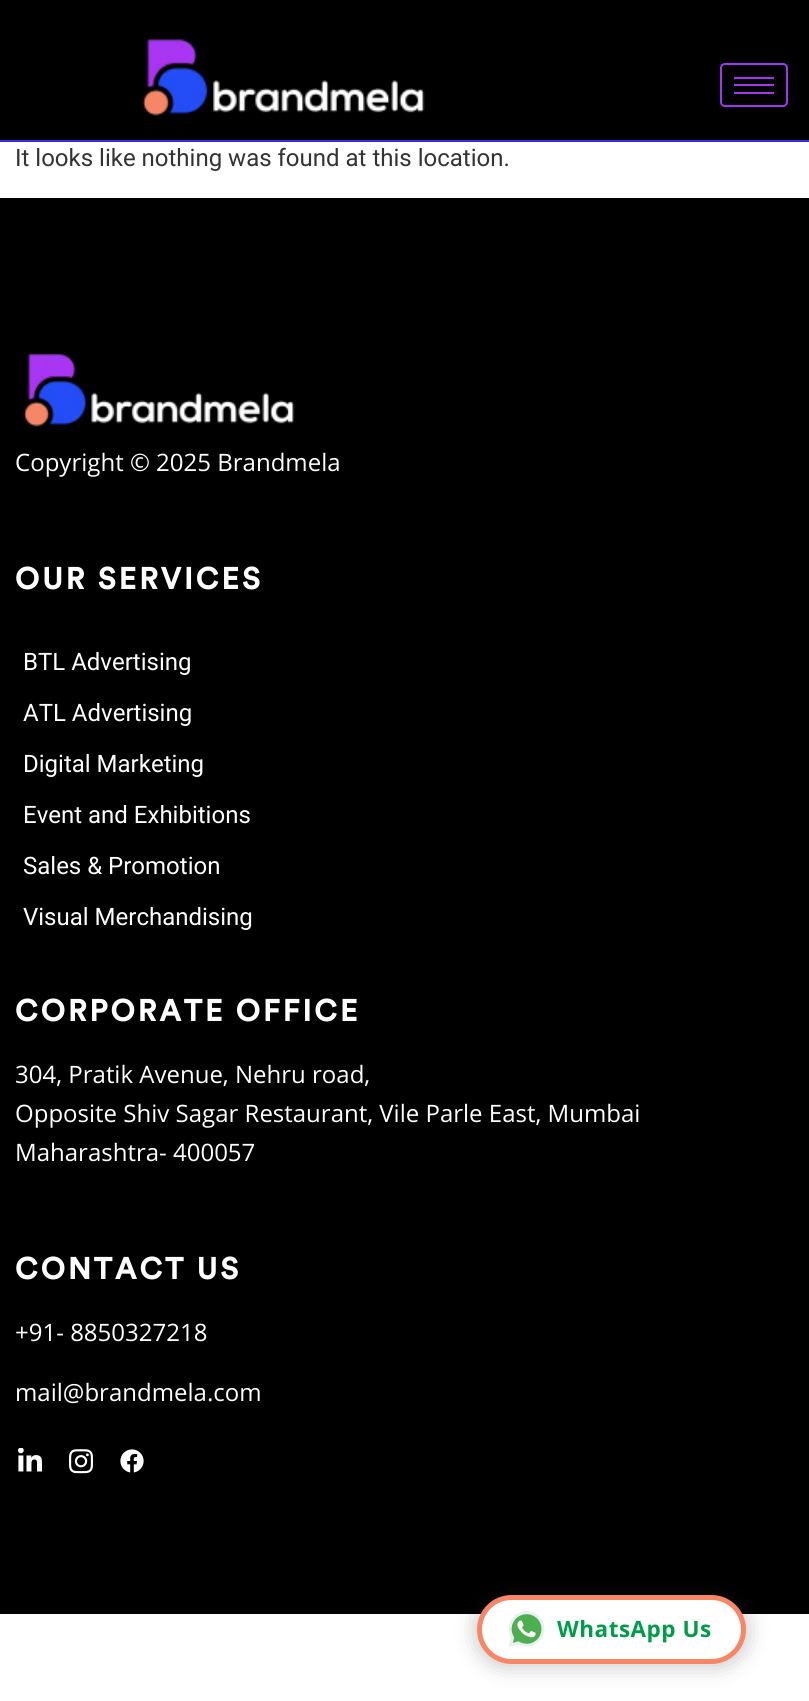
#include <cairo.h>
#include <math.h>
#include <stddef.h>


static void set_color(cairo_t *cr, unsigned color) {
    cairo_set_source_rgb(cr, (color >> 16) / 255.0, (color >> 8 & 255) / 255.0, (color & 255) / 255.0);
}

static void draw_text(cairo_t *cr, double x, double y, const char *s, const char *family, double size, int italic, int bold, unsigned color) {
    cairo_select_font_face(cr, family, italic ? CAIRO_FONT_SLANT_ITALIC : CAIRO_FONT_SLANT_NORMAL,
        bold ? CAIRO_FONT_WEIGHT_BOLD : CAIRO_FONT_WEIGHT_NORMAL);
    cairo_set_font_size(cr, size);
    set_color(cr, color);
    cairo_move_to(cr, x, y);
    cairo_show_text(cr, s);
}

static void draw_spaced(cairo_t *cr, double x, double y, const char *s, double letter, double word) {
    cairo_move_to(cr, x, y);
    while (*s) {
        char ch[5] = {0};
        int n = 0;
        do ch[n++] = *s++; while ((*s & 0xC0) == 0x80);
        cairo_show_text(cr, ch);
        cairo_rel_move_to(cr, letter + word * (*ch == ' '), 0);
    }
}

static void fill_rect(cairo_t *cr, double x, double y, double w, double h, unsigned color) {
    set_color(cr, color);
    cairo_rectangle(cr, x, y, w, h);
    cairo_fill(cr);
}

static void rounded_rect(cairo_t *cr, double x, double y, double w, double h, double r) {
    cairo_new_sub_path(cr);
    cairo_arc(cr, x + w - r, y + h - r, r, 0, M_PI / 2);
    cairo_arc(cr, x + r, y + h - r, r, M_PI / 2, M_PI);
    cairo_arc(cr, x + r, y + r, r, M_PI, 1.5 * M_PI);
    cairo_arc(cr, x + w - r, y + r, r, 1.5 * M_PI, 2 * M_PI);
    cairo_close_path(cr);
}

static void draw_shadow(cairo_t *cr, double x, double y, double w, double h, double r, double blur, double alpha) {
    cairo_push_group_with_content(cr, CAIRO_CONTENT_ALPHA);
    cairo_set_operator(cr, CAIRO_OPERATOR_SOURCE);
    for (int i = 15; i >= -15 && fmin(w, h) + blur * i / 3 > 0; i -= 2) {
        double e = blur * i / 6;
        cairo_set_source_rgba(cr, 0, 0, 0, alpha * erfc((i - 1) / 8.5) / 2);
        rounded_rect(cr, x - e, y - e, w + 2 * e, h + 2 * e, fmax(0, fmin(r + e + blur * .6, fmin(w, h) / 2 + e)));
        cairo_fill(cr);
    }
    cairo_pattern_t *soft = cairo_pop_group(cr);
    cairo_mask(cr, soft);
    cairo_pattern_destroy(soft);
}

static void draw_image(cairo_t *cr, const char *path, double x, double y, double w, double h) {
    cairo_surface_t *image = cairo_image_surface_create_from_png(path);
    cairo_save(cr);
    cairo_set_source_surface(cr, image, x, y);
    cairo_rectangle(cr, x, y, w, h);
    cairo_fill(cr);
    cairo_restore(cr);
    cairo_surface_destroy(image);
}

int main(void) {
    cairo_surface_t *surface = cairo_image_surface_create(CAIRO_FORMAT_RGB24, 809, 1701);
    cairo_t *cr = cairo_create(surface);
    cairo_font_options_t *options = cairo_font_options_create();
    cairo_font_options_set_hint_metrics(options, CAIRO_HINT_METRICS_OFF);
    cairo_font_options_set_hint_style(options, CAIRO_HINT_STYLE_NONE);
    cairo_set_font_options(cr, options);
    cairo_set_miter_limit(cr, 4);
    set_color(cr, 0xFFFFFF);
    cairo_paint(cr);
    fill_rect(cr, 0, 0, 809, 140, 0x000000);
    fill_rect(cr, 0, 140, 809, 2, 0x3D29DA);
    draw_image(cr, "assets/img1.png", 142, 39, 283, 77);
    rounded_rect(cr, 721, 64, 66, 42, 4);
    set_color(cr, 0xA434F4);
    cairo_stroke(cr);
    fill_rect(cr, 734, 77, 40, 2, 0xA434F4);
    fill_rect(cr, 734, 84, 40, 2, 0xA434F4);
    fill_rect(cr, 734, 92, 40, 2, 0xA434F4);
    draw_text(cr, 15, 166, "It looks like nothing was found at this location.", "Roboto", 24, 0, 0, 0x333333);
    fill_rect(cr, 0, 198, 809, 1416, 0x000000);
    draw_image(cr, "assets/img2.png", 23, 353, 272, 74);
    draw_text(cr, 15, 471, "Copyright © 2025 Brandmela", "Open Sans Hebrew", 24, 0, 0, 0xFFFFFF);
    cairo_select_font_face(cr, "Circular", CAIRO_FONT_SLANT_NORMAL, CAIRO_FONT_WEIGHT_BOLD);
    cairo_set_font_size(cr, 30);
    draw_spaced(cr, 15, 589, "OUR SERVICES", 3, 0);
    draw_text(cr, 23, 670, "BTL Advertising", "Roboto", 24, 0, 0, 0xFFFFFF);
    draw_text(cr, 23, 721, "ATL Advertising", "Roboto", 24, 0, 0, 0xFFFFFF);
    draw_text(cr, 23, 772, "Digital Marketing", "Roboto", 24, 0, 0, 0xFFFFFF);
    draw_text(cr, 23, 823, "Event and Exhibitions", "Roboto", 24, 0, 0, 0xFFFFFF);
    draw_text(cr, 23, 874, "Sales & Promotion", "Roboto", 24, 0, 0, 0xFFFFFF);
    draw_text(cr, 23, 925, "Visual Merchandising", "Roboto", 24, 0, 0, 0xFFFFFF);
    cairo_select_font_face(cr, "Circular", CAIRO_FONT_SLANT_NORMAL, CAIRO_FONT_WEIGHT_BOLD);
    cairo_set_font_size(cr, 30);
    draw_spaced(cr, 15, 1021, "CORPORATE OFFICE", 3, 0);
    draw_text(cr, 15, 1083, "304, Pratik Avenue, Nehru road,", "Open Sans Hebrew", 24, 0, 0, 0xFFFFFF);
    draw_text(cr, 15, 1122, "Opposite Shiv Sagar Restaurant, Vile Parle East, Mumbai", "Open Sans Hebrew", 24, 0, 0, 0xFFFFFF);
    draw_text(cr, 15, 1161, "Maharashtra- 400057", "Open Sans Hebrew", 24, 0, 0, 0xFFFFFF);
    cairo_select_font_face(cr, "Circular", CAIRO_FONT_SLANT_NORMAL, CAIRO_FONT_WEIGHT_BOLD);
    cairo_set_font_size(cr, 30);
    draw_spaced(cr, 15, 1279, "CONTACT US", 3, 0);
    draw_text(cr, 15, 1341, "+91- 8850327218", "Open Sans Hebrew", 24, 0, 0, 0xFFFFFF);
    draw_text(cr, 15, 1401, "mail@brandmela.com", "Open Sans Hebrew", 24, 0, 0, 0xFFFFFF);
    draw_image(cr, "assets/img3.png", 18, 1448, 24, 24);
    draw_image(cr, "assets/img4.png", 69, 1449, 24, 25);
    draw_image(cr, "assets/img5.png", 120, 1449, 24, 24);
    set_color(cr, 0x202124);
    draw_shadow(cr, 477, 1596, 269, 69, 34.5, 11, 0.28);
    set_color(cr, 0xFFFFFF);
    rounded_rect(cr, 479.5, 1597.5, 264, 64, 32);
    cairo_fill_preserve(cr);
    set_color(cr, 0xF78566);
    cairo_set_line_width(cr, 5);
    cairo_stroke(cr);
    draw_image(cr, "assets/img6.png", 509, 1611, 35, 36);
    cairo_select_font_face(cr, "Open Sans Hebrew", CAIRO_FONT_SLANT_NORMAL, CAIRO_FONT_WEIGHT_BOLD);
    cairo_set_font_size(cr, 22.5);
    set_color(cr, 0x009D49);
    draw_spaced(cr, 557, 1637, "WhatsApp Us", 0.5, 0);
    cairo_surface_write_to_png(surface, "output.png");
    cairo_font_options_destroy(options);
    cairo_destroy(cr);
    cairo_surface_destroy(surface);
    return 0;
}
